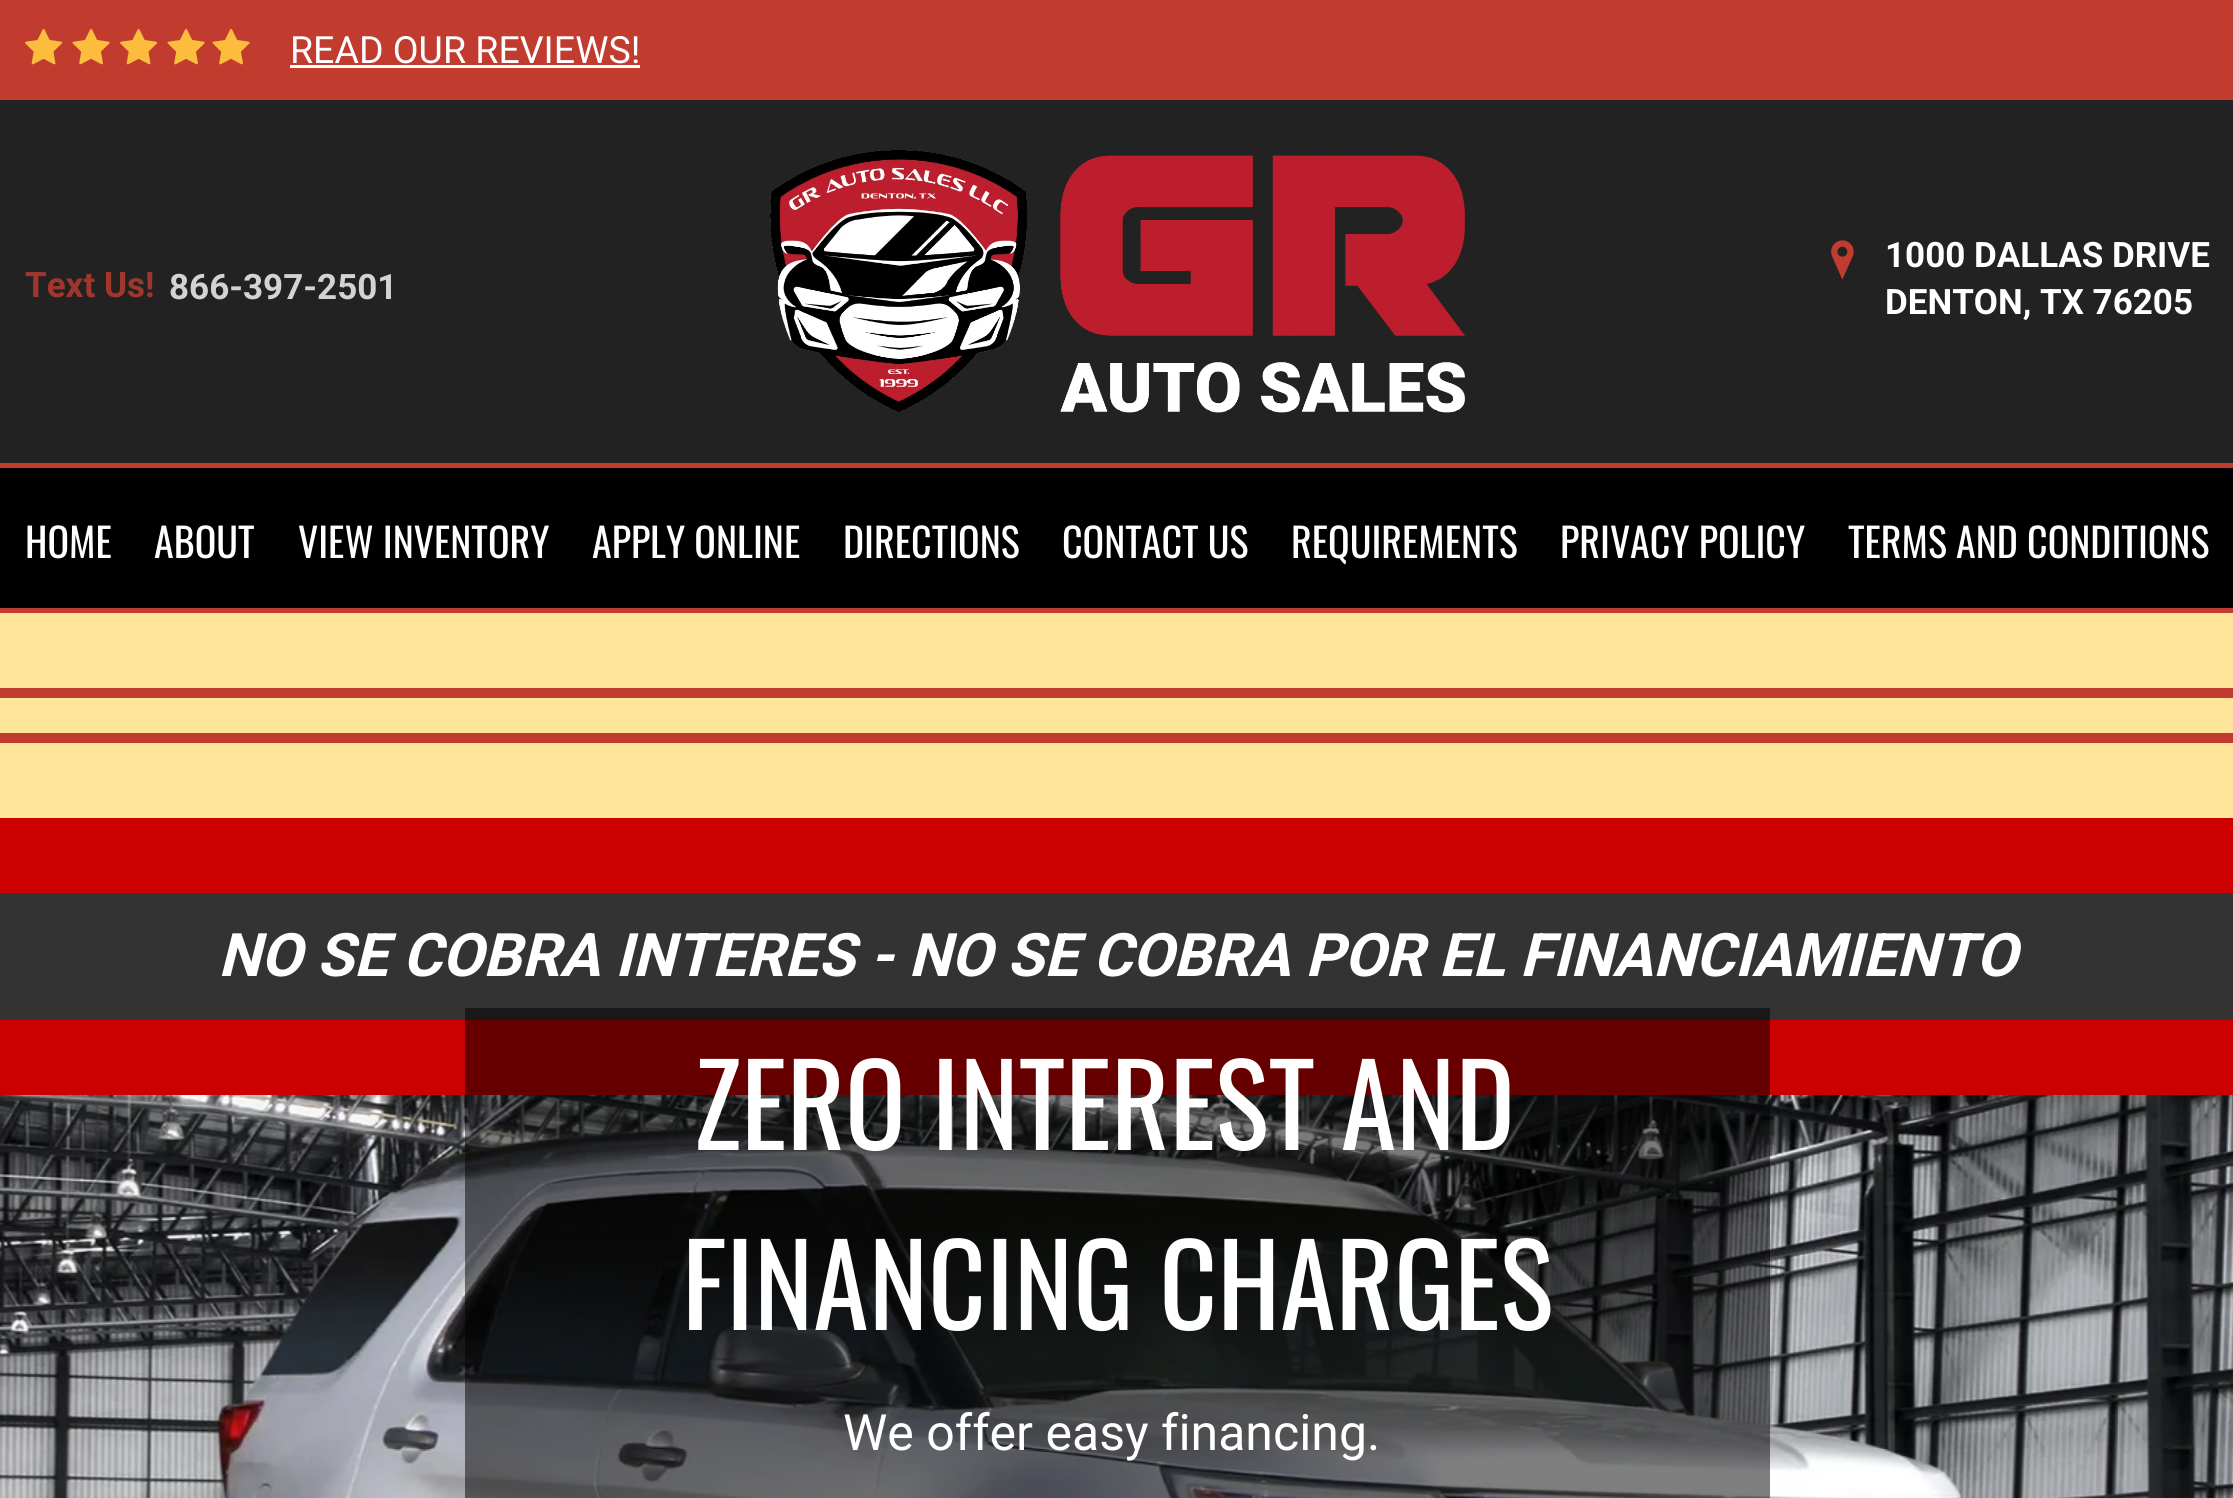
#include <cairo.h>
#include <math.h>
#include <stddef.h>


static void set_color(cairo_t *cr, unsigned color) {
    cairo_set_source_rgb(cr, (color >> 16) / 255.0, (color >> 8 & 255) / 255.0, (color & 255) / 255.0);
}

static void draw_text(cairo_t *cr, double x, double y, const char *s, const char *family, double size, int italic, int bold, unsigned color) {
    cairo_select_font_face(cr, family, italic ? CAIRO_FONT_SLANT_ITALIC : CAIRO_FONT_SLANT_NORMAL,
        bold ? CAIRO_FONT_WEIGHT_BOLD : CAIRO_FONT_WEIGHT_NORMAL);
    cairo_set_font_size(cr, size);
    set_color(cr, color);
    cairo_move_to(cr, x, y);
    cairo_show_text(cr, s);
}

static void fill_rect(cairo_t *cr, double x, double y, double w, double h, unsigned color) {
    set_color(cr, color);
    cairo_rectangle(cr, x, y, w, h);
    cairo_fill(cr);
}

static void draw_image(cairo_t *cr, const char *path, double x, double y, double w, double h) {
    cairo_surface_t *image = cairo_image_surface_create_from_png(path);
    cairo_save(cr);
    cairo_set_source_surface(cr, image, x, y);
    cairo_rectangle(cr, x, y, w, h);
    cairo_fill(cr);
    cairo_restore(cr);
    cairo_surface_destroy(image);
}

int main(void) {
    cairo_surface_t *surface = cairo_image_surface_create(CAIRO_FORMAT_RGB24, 2233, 1498);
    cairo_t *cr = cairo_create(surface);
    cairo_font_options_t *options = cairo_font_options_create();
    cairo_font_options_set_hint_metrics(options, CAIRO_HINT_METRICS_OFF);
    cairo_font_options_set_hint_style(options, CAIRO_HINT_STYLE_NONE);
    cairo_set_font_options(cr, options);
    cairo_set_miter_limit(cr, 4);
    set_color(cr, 0xFFE599);
    cairo_paint(cr);
    fill_rect(cr, 0, 100, 2233, 363, 0x222222);
    fill_rect(cr, 0, 0, 2233, 100, 0xC13B2F);
    draw_image(cr, "assets/img1.png", 25, 29, 38, 36);
    draw_image(cr, "assets/img2.png", 72, 29, 38, 36);
    draw_image(cr, "assets/img1.png", 120, 29, 38, 36);
    draw_image(cr, "assets/img2.png", 167, 29, 38, 36);
    draw_image(cr, "assets/img2.png", 212, 29, 38, 36);
    draw_text(cr, 290, 63, "READ OUR REVIEWS!", "Roboto", 37.5, 0, 0, 0xFFFFFF);
    fill_rect(cr, 290, 65, 350, 3, 0xFFFFFF);
    draw_text(cr, 25, 297, "Text Us!", "Roboto", 35, 0, 1, 0xA1362C);
    draw_text(cr, 169, 299, "866-397-2501", "Roboto", 35, 0, 1, 0xD3D3D3);
    draw_image(cr, "assets/img3.png", 770, 150, 696, 263);
    draw_image(cr, "assets/img4.png", 1831, 240, 23, 40);
    draw_text(cr, 1885, 267, "1000 DALLAS DRIVE", "Roboto", 35, 0, 1, 0xFFFFFF);
    draw_text(cr, 1885, 314, "DENTON, TX 76205", "Roboto", 35, 0, 1, 0xFFFFFF);
    fill_rect(cr, 0, 468, 2233, 140, 0x000000);
    fill_rect(cr, 0, 463, 2233, 5, 0xC13B2F);
    draw_text(cr, 25, 558, "HOME", "Oswald", 40, 0, 0, 0xFFFFFF);
    draw_text(cr, 154, 558, "ABOUT", "Oswald", 40, 0, 0, 0xFFFFFF);
    draw_text(cr, 298, 558, "VIEW INVENTORY", "Oswald", 40, 0, 0, 0xFFFFFF);
    draw_text(cr, 592, 558, "APPLY ONLINE", "Oswald", 40, 0, 0, 0xFFFFFF);
    draw_text(cr, 843, 558, "DIRECTIONS", "Oswald", 40, 0, 0, 0xFFFFFF);
    draw_text(cr, 1062, 558, "CONTACT US", "Oswald", 40, 0, 0, 0xFFFFFF);
    draw_text(cr, 1291, 558, "REQUIREMENTS", "Oswald", 40, 0, 0, 0xFFFFFF);
    draw_text(cr, 1560, 558, "PRIVACY POLICY", "Oswald", 40, 0, 0, 0xFFFFFF);
    draw_text(cr, 1848, 558, "TERMS AND CONDITIONS", "Oswald", 40, 0, 0, 0xFFFFFF);
    fill_rect(cr, 0, 608, 2233, 5, 0xC13B2F);
    fill_rect(cr, 0, 688, 2233, 10, 0xC13B2F);
    fill_rect(cr, 0, 733, 2233, 10, 0xC13B2F);
    fill_rect(cr, 0, 818, 2233, 277, 0xCC0000);
    fill_rect(cr, 0, 893, 2233, 127, 0x333333);
    draw_text(cr, 218, 976, "NO SE COBRA INTERES - NO SE COBRA POR EL FINANCIAMIENTO", "Roboto", 60, 1, 1, 0xFFFFFF);
    draw_image(cr, "assets/img5.png", 0, 1095, 2233, 403);
    cairo_set_source_rgba(cr, 0, 0, 0, 0.5);
    cairo_rectangle(cr, 465, 1008, 1305, 490);
    cairo_fill(cr);
    draw_text(cr, 694, 1150, "ZERO INTEREST AND", "Oswald", 112.5, 0, 0, 0xFFFFFF);
    draw_text(cr, 682, 1330, "FINANCING CHARGES", "Oswald", 112.5, 0, 0, 0xFFFFFF);
    draw_text(cr, 843, 1450, "We offer easy financing.", "Roboto", 50, 0, 0, 0xFFFFFF);
    cairo_surface_write_to_png(surface, "output.png");
    cairo_font_options_destroy(options);
    cairo_destroy(cr);
    cairo_surface_destroy(surface);
    return 0;
}
